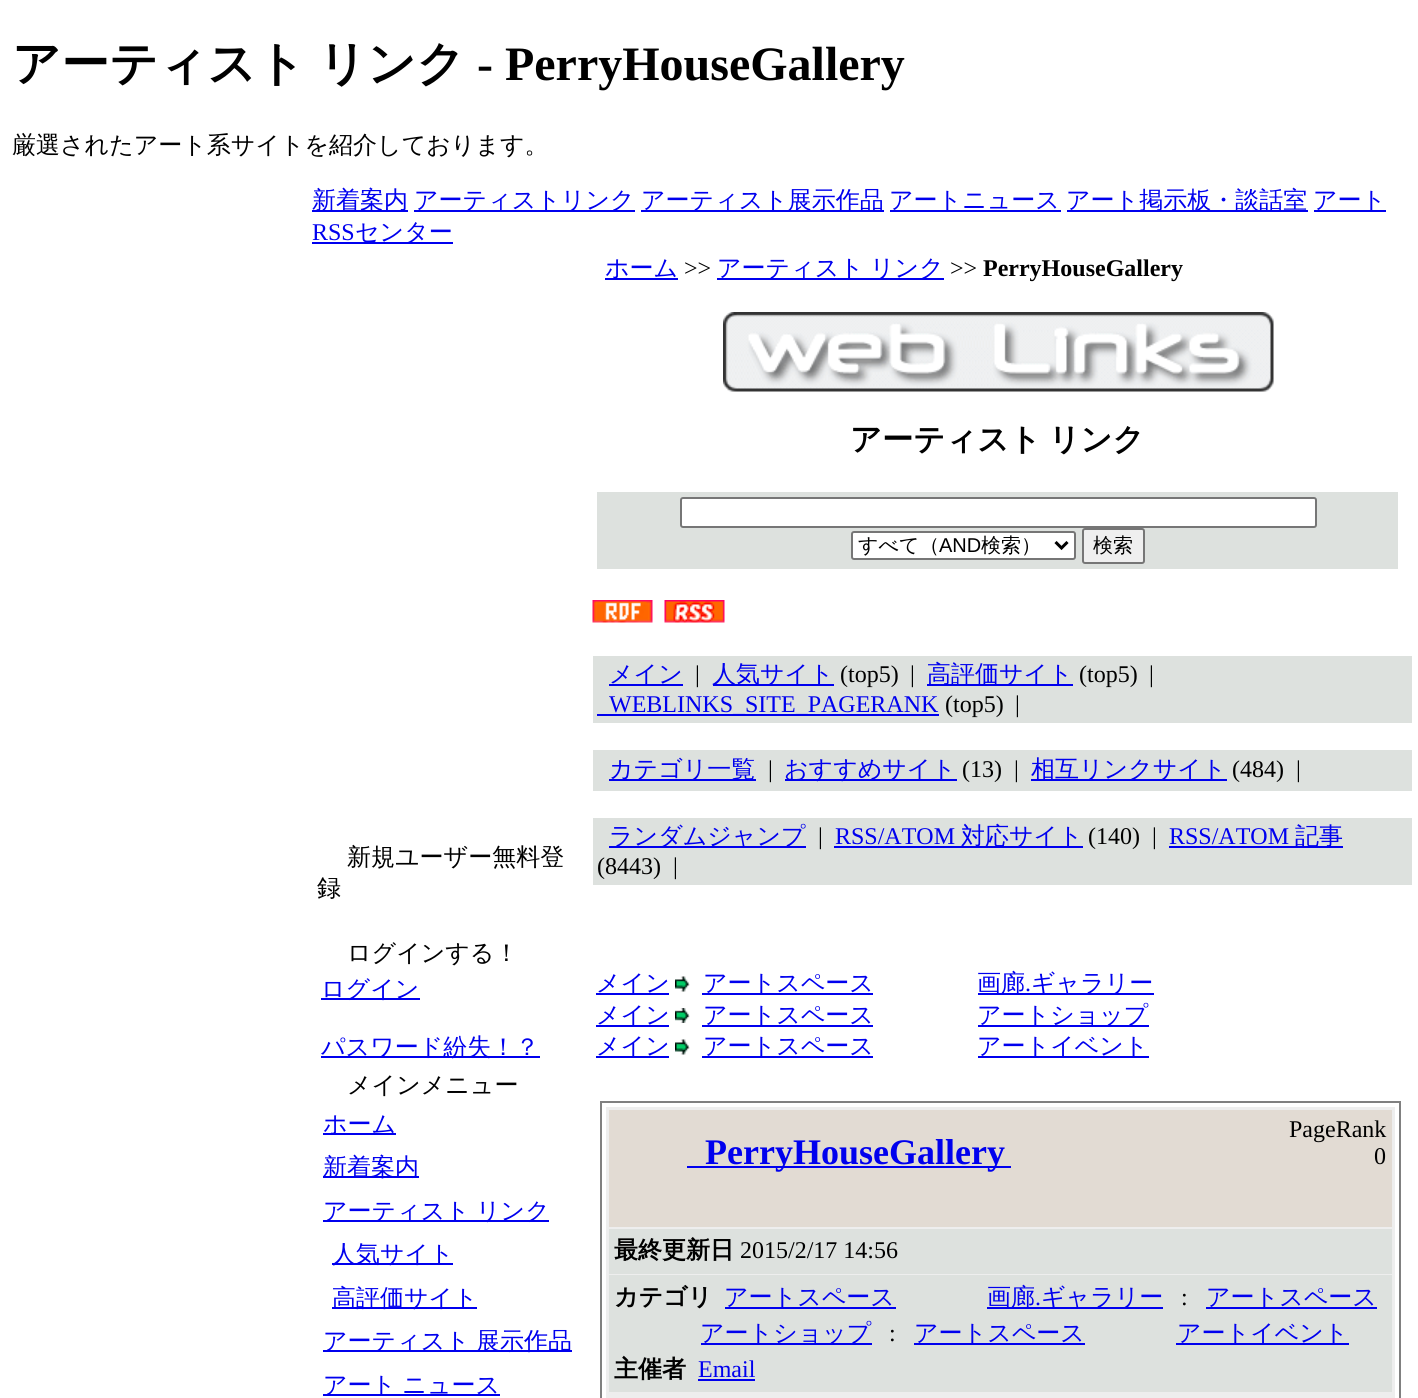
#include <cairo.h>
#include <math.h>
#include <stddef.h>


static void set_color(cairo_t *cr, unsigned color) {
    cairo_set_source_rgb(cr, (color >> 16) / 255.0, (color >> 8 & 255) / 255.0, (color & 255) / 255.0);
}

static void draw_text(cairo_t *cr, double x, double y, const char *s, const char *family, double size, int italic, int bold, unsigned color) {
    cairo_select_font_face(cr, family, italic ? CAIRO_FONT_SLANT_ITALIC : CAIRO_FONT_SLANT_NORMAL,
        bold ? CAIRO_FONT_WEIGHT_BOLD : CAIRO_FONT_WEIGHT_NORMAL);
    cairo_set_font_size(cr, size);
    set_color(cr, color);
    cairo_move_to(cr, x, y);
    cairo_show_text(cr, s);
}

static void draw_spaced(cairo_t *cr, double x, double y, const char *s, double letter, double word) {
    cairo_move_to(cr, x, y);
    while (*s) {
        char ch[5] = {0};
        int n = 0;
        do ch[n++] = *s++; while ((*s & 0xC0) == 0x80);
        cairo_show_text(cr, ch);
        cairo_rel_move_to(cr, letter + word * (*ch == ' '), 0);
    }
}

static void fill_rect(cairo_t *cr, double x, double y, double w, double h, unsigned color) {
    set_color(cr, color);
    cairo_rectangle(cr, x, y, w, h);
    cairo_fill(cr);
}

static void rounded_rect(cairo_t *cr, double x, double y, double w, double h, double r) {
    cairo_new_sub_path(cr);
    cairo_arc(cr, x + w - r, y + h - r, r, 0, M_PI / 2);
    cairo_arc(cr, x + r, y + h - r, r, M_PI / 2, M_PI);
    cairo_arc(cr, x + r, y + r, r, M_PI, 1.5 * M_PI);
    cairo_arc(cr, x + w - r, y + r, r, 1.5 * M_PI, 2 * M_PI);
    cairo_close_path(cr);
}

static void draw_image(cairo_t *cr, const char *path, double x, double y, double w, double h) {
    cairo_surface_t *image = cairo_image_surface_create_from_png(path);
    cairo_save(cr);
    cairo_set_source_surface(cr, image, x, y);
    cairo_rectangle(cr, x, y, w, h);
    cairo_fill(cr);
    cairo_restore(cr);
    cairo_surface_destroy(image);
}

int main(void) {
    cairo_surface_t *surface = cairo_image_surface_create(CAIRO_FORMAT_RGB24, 1418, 1398);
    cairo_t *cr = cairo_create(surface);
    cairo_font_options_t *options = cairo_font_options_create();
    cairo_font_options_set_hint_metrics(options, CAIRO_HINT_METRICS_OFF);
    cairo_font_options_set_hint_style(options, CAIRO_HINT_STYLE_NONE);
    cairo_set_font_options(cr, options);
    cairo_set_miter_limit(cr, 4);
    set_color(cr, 0xFFFFFF);
    cairo_paint(cr);
    draw_text(cr, 12, 80, "アーティスト", "WenQuanYi Zen Hei", 48, 0, 1, 0x000000);
    draw_text(cr, 318, 80, "リンク", "WenQuanYi Zen Hei", 48, 0, 1, 0x000000);
    draw_text(cr, 477, 80, "- PerryHouseGallery", "Liberation Serif", 48, 0, 1, 0x000000);
    draw_text(cr, 12, 153, "厳選されたアート系サイトを紹介しております。", "WenQuanYi Zen Hei Medium", 24, 0, 0, 0x000000);
    fill_rect(cr, 312, 210, 96, 2, 0x0000EE);
    draw_text(cr, 312, 208, "新着案内", "WenQuanYi Zen Hei Medium", 24, 0, 0, 0x0000EE);
    fill_rect(cr, 414, 210, 221, 2, 0x0000EE);
    draw_text(cr, 414, 208, "アーティストリンク", "WenQuanYi Zen Hei Medium", 24, 0, 0, 0x0000EE);
    fill_rect(cr, 641, 210, 243, 2, 0x0000EE);
    draw_text(cr, 641, 208, "アーティスト展示作品", "WenQuanYi Zen Hei Medium", 24, 0, 0, 0x0000EE);
    fill_rect(cr, 890, 210, 171, 2, 0x0000EE);
    draw_text(cr, 889, 208, "アートニュース", "WenQuanYi Zen Hei Medium", 24, 0, 0, 0x0000EE);
    fill_rect(cr, 1067, 210, 241, 2, 0x0000EE);
    draw_text(cr, 1066, 208, "アート掲示板・談話室", "WenQuanYi Zen Hei Medium", 24, 0, 0, 0x0000EE);
    fill_rect(cr, 1314, 210, 72, 2, 0x0000EE);
    draw_text(cr, 1313, 208, "アート", "WenQuanYi Zen Hei Medium", 24, 0, 0, 0x0000EE);
    draw_text(cr, 312, 240, "RSS", "Liberation Serif", 24, 0, 0, 0x0000EE);
    fill_rect(cr, 312, 242, 141, 2, 0x0000EE);
    draw_text(cr, 355, 240, "センター", "WenQuanYi Zen Hei Medium", 24, 0, 0, 0x0000EE);
    draw_text(cr, 347, 865, "新規ユーザー無料登", "WenQuanYi Zen Hei Medium", 24, 0, 0, 0x000000);
    draw_text(cr, 317, 896, "録", "WenQuanYi Zen Hei Medium", 24, 0, 0, 0x000000);
    draw_text(cr, 347, 961, "ログインする！", "WenQuanYi Zen Hei Medium", 24, 0, 0, 0x000000);
    fill_rect(cr, 321, 998, 99, 2, 0x0000EE);
    draw_text(cr, 321, 997, "ログイン", "WenQuanYi Zen Hei Medium", 24, 0, 0, 0x0000EE);
    fill_rect(cr, 321, 1056, 219, 2, 0x0000EE);
    draw_text(cr, 321, 1055, "パスワード紛失！？", "WenQuanYi Zen Hei Medium", 24, 0, 0, 0x0000EE);
    draw_text(cr, 347, 1093, "メインメニュー", "WenQuanYi Zen Hei Medium", 24, 0, 0, 0x000000);
    fill_rect(cr, 323, 1133, 73, 2, 0x0000EE);
    draw_text(cr, 323, 1132, "ホーム", "WenQuanYi Zen Hei Medium", 24, 0, 0, 0x0000EE);
    fill_rect(cr, 323, 1176, 96, 2, 0x0000EE);
    draw_text(cr, 323, 1175, "新着案内", "WenQuanYi Zen Hei Medium", 24, 0, 0, 0x0000EE);
    fill_rect(cr, 323, 1220, 226, 2, 0x0000EE);
    draw_spaced(cr, 323, 1219, "アーティスト リンク", 0, -1);
    fill_rect(cr, 332, 1263, 121, 2, 0x0000EE);
    draw_text(cr, 332, 1262, "人気サイト", "WenQuanYi Zen Hei Medium", 24, 0, 0, 0x0000EE);
    fill_rect(cr, 332, 1307, 145, 2, 0x0000EE);
    draw_text(cr, 332, 1306, "高評価サイト", "WenQuanYi Zen Hei Medium", 24, 0, 0, 0x0000EE);
    fill_rect(cr, 323, 1350, 249, 2, 0x0000EE);
    draw_spaced(cr, 323, 1349, "アーティスト 展示作品", 0, -1);
    fill_rect(cr, 323, 1394, 177, 2, 0x0000EE);
    draw_spaced(cr, 323, 1393, "アート ニュース", 0, -1);
    fill_rect(cr, 605, 278, 73, 2, 0x0000EE);
    draw_text(cr, 605, 276, "ホーム", "WenQuanYi Zen Hei Medium", 24, 0, 0, 0x0000EE);
    draw_text(cr, 684, 276, ">>", "Liberation Serif", 24, 0, 0, 0x000000);
    fill_rect(cr, 717, 278, 227, 2, 0x0000EE);
    cairo_select_font_face(cr, "WenQuanYi Zen Hei Medium", CAIRO_FONT_SLANT_NORMAL, CAIRO_FONT_WEIGHT_NORMAL);
    draw_spaced(cr, 717, 276, "アーティスト リンク", 0, -1);
    draw_text(cr, 950, 276, ">>", "Liberation Serif", 24, 0, 0, 0x000000);
    draw_text(cr, 983, 276, "PerryHouseGallery", "Liberation Serif", 24, 0, 1, 0x000000);
    draw_image(cr, "assets/img1.png", 723, 312, 551, 80);
    cairo_select_font_face(cr, "WenQuanYi Zen Hei", CAIRO_FONT_SLANT_NORMAL, CAIRO_FONT_WEIGHT_BOLD);
    cairo_set_font_size(cr, 31.25);
    draw_spaced(cr, 850, 450, "アーティスト リンク", 0, -2);
    fill_rect(cr, 597, 492, 801, 77, 0xDDE1DE);
    set_color(cr, 0xFFFFFF);
    rounded_rect(cr, 681, 498, 635, 29, 2);
    cairo_fill_preserve(cr);
    set_color(cr, 0x767676);
    cairo_stroke(cr);
    set_color(cr, 0xFFFFFF);
    rounded_rect(cr, 852, 532, 223, 27, 2);
    cairo_fill_preserve(cr);
    set_color(cr, 0x767676);
    cairo_stroke(cr);
    cairo_new_path(cr);
    cairo_move_to(cr, 1055.5, 542);
    cairo_line_to(cr, 1061.5, 548);
    cairo_line_to(cr, 1067.5, 542);
    set_color(cr, 0x000000);
    cairo_set_line_width(cr, 3);
    cairo_stroke(cr);
    draw_text(cr, 858, 552, "すべて（", "WenQuanYi Zen Hei Medium", 20, 0, 0, 0x000000);
    draw_text(cr, 939, 552, "AND", "Liberation Sans", 20, 0, 0, 0x000000);
    draw_text(cr, 981, 552, "検索）", "WenQuanYi Zen Hei Medium", 20, 0, 0, 0x000000);
    set_color(cr, 0xEFEFEF);
    rounded_rect(cr, 1083, 529, 61, 34, 2);
    cairo_fill_preserve(cr);
    set_color(cr, 0x767676);
    cairo_set_line_width(cr, 2);
    cairo_stroke(cr);
    draw_text(cr, 1093, 552, "検索", "WenQuanYi Zen Hei Medium", 20, 0, 0, 0x000000);
    draw_image(cr, "assets/img2.png", 592, 600, 61, 23);
    draw_image(cr, "assets/img3.png", 664, 600, 61, 23);
    fill_rect(cr, 593, 656, 819, 67, 0xDDE1DE);
    fill_rect(cr, 609, 684, 74, 2, 0x0000EE);
    draw_text(cr, 609, 682, "メイン", "WenQuanYi Zen Hei Medium", 24, 0, 0, 0x0000EE);
    draw_text(cr, 695, 682, "|", "Liberation Serif", 24, 0, 0, 0x000000);
    fill_rect(cr, 713, 684, 121, 2, 0x0000EE);
    draw_text(cr, 712, 682, "人気サイト", "WenQuanYi Zen Hei Medium", 24, 0, 0, 0x0000EE);
    draw_text(cr, 840, 682, "(top5)", "Liberation Serif", 24, 0, 0, 0x000000);
    draw_text(cr, 910, 682, "|", "Liberation Serif", 24, 0, 0, 0x000000);
    fill_rect(cr, 927, 684, 146, 2, 0x0000EE);
    draw_text(cr, 927, 682, "高評価サイト", "WenQuanYi Zen Hei Medium", 24, 0, 0, 0x0000EE);
    draw_text(cr, 1079, 682, "(top5)", "Liberation Serif", 24, 0, 0, 0x000000);
    draw_text(cr, 1149, 682, "|", "Liberation Serif", 24, 0, 0, 0x000000);
    fill_rect(cr, 597, 714, 342, 2, 0x0000EE);
    draw_text(cr, 609, 712, "WEBLINKS_SITE_PAGERANK", "Liberation Serif", 24, 0, 0, 0x0000EE);
    draw_text(cr, 945, 712, "(top5)", "Liberation Serif", 24, 0, 0, 0x000000);
    draw_text(cr, 1015, 712, "|", "Liberation Serif", 24, 0, 0, 0x000000);
    fill_rect(cr, 593, 750, 819, 41, 0xDDE1DE);
    fill_rect(cr, 609, 779, 147, 2, 0x0000EE);
    draw_text(cr, 609, 777, "カテゴリ一覧", "WenQuanYi Zen Hei Medium", 24, 0, 0, 0x0000EE);
    draw_text(cr, 768, 777, "|", "Liberation Serif", 24, 0, 0, 0x000000);
    fill_rect(cr, 785, 779, 172, 2, 0x0000EE);
    draw_text(cr, 784, 777, "おすすめサイト", "WenQuanYi Zen Hei Medium", 24, 0, 0, 0x0000EE);
    draw_text(cr, 962, 777, "(13)", "Liberation Serif", 24, 0, 0, 0x000000);
    draw_text(cr, 1014, 777, "|", "Liberation Serif", 24, 0, 0, 0x000000);
    fill_rect(cr, 1031, 779, 196, 2, 0x0000EE);
    draw_text(cr, 1031, 777, "相互リンクサイト", "WenQuanYi Zen Hei Medium", 24, 0, 0, 0x0000EE);
    draw_text(cr, 1232, 777, "(484)", "Liberation Serif", 24, 0, 0, 0x000000);
    draw_text(cr, 1296, 777, "|", "Liberation Serif", 24, 0, 0, 0x000000);
    fill_rect(cr, 593, 818, 819, 67, 0xDDE1DE);
    fill_rect(cr, 609, 846, 197, 2, 0x0000EE);
    draw_text(cr, 609, 844, "ランダムジャンプ", "WenQuanYi Zen Hei Medium", 24, 0, 0, 0x0000EE);
    draw_text(cr, 818, 844, "|", "Liberation Serif", 24, 0, 0, 0x000000);
    draw_text(cr, 835, 844, "RSS/ATOM", "Liberation Serif", 24, 0, 0, 0x0000EE);
    fill_rect(cr, 834, 846, 249, 2, 0x0000EE);
    draw_text(cr, 961, 844, "対応サイト", "WenQuanYi Zen Hei Medium", 24, 0, 0, 0x0000EE);
    draw_text(cr, 1088, 844, "(140)", "Liberation Serif", 24, 0, 0, 0x000000);
    draw_text(cr, 1152, 844, "|", "Liberation Serif", 24, 0, 0, 0x000000);
    draw_text(cr, 1169, 844, "RSS/ATOM", "Liberation Serif", 24, 0, 0, 0x0000EE);
    fill_rect(cr, 1169, 846, 174, 2, 0x0000EE);
    draw_text(cr, 1295, 844, "記事", "WenQuanYi Zen Hei Medium", 24, 0, 0, 0x0000EE);
    draw_text(cr, 597, 874, "(8443)", "Liberation Serif", 24, 0, 0, 0x000000);
    draw_text(cr, 673, 874, "|", "Liberation Serif", 24, 0, 0, 0x000000);
    fill_rect(cr, 596, 993, 73, 2, 0x0000EE);
    draw_text(cr, 596, 991, "メイン", "WenQuanYi Zen Hei Medium", 24, 0, 0, 0x0000EE);
    draw_image(cr, "assets/img4.png", 675, 976, 15, 16);
    fill_rect(cr, 702, 993, 171, 2, 0x0000EE);
    draw_text(cr, 703, 991, "アートスペース", "WenQuanYi Zen Hei Medium", 24, 0, 0, 0x0000EE);
    fill_rect(cr, 978, 993, 176, 2, 0x0000EE);
    draw_text(cr, 977, 991, "画廊", "WenQuanYi Zen Hei Medium", 24, 0, 0, 0x0000EE);
    draw_text(cr, 1025, 991, ".", "Liberation Serif", 24, 0, 0, 0x0000EE);
    draw_text(cr, 1031, 991, "ギャラリー", "WenQuanYi Zen Hei Medium", 24, 0, 0, 0x0000EE);
    fill_rect(cr, 596, 1025, 73, 2, 0x0000EE);
    draw_text(cr, 596, 1023, "メイン", "WenQuanYi Zen Hei Medium", 24, 0, 0, 0x0000EE);
    draw_image(cr, "assets/img5.png", 675, 1008, 15, 15);
    fill_rect(cr, 702, 1025, 171, 2, 0x0000EE);
    draw_text(cr, 703, 1023, "アートスペース", "WenQuanYi Zen Hei Medium", 24, 0, 0, 0x0000EE);
    fill_rect(cr, 978, 1025, 171, 2, 0x0000EE);
    draw_text(cr, 977, 1023, "アートショップ", "WenQuanYi Zen Hei Medium", 24, 0, 0, 0x0000EE);
    fill_rect(cr, 596, 1056, 73, 2, 0x0000EE);
    draw_text(cr, 596, 1054, "メイン", "WenQuanYi Zen Hei Medium", 24, 0, 0, 0x0000EE);
    draw_image(cr, "assets/img4.png", 675, 1039, 15, 16);
    fill_rect(cr, 702, 1056, 171, 2, 0x0000EE);
    draw_text(cr, 703, 1054, "アートスペース", "WenQuanYi Zen Hei Medium", 24, 0, 0, 0x0000EE);
    fill_rect(cr, 978, 1056, 171, 2, 0x0000EE);
    draw_text(cr, 977, 1054, "アートイベント", "WenQuanYi Zen Hei Medium", 24, 0, 0, 0x0000EE);
    cairo_rectangle(cr, 601, 1102, 799, 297);
    set_color(cr, 0x808080);
    cairo_stroke(cr);
    fill_rect(cr, 606, 1107, 789, 291, 0xEEEEEE);
    fill_rect(cr, 609, 1110, 783, 117, 0xE2DBD3);
    fill_rect(cr, 687, 1166, 324, 2, 0x0000EE);
    draw_text(cr, 705, 1164, "PerryHouseGallery", "Liberation Serif", 36, 0, 1, 0x0000EE);
    draw_text(cr, 1289, 1137, "PageRank", "Liberation Serif", 24, 0, 0, 0x000000);
    draw_text(cr, 1374, 1164, "0", "Liberation Serif", 24, 0, 0, 0x000000);
    fill_rect(cr, 609, 1229, 783, 45, 0xDDE1DE);
    draw_text(cr, 614, 1258, "最終更新日", "WenQuanYi Zen Hei", 24, 0, 1, 0x000000);
    draw_text(cr, 740, 1258, "2015/2/17 14:56", "Liberation Serif", 24, 0, 0, 0x000000);
    fill_rect(cr, 609, 1275, 783, 117, 0xDDE1DE);
    draw_text(cr, 614, 1305, "カテゴリ", "WenQuanYi Zen Hei", 24, 0, 1, 0x000000);
    fill_rect(cr, 725, 1307, 171, 2, 0x0000EE);
    draw_text(cr, 724, 1305, "アートスペース", "WenQuanYi Zen Hei Medium", 24, 0, 0, 0x0000EE);
    fill_rect(cr, 987, 1307, 176, 2, 0x0000EE);
    draw_text(cr, 987, 1305, "画廊", "WenQuanYi Zen Hei Medium", 24, 0, 0, 0x0000EE);
    draw_text(cr, 1035, 1305, ".", "Liberation Serif", 24, 0, 0, 0x0000EE);
    draw_text(cr, 1041, 1305, "ギャラリー", "WenQuanYi Zen Hei Medium", 24, 0, 0, 0x0000EE);
    draw_text(cr, 1181, 1305, ":", "Liberation Serif", 24, 0, 0, 0x000000);
    fill_rect(cr, 1206, 1307, 171, 2, 0x0000EE);
    draw_text(cr, 1206, 1305, "アートスペース", "WenQuanYi Zen Hei Medium", 24, 0, 0, 0x0000EE);
    fill_rect(cr, 701, 1343, 171, 2, 0x0000EE);
    draw_text(cr, 700, 1341, "アートショップ", "WenQuanYi Zen Hei Medium", 24, 0, 0, 0x0000EE);
    draw_text(cr, 889, 1341, ":", "Liberation Serif", 24, 0, 0, 0x000000);
    fill_rect(cr, 914, 1343, 171, 2, 0x0000EE);
    draw_text(cr, 914, 1341, "アートスペース", "WenQuanYi Zen Hei Medium", 24, 0, 0, 0x0000EE);
    fill_rect(cr, 1176, 1343, 173, 2, 0x0000EE);
    draw_text(cr, 1177, 1341, "アートイベント", "WenQuanYi Zen Hei Medium", 24, 0, 0, 0x0000EE);
    draw_text(cr, 614, 1377, "主催者", "WenQuanYi Zen Hei", 24, 0, 1, 0x000000);
    draw_text(cr, 698, 1377, "Email", "Liberation Serif", 24, 0, 0, 0x0000EE);
    fill_rect(cr, 698, 1379, 57, 2, 0x0000EE);
    cairo_surface_write_to_png(surface, "output.png");
    cairo_font_options_destroy(options);
    cairo_destroy(cr);
    cairo_surface_destroy(surface);
    return 0;
}
